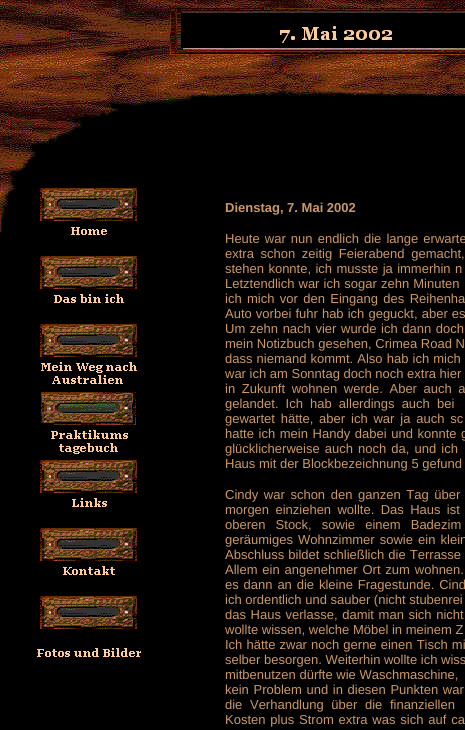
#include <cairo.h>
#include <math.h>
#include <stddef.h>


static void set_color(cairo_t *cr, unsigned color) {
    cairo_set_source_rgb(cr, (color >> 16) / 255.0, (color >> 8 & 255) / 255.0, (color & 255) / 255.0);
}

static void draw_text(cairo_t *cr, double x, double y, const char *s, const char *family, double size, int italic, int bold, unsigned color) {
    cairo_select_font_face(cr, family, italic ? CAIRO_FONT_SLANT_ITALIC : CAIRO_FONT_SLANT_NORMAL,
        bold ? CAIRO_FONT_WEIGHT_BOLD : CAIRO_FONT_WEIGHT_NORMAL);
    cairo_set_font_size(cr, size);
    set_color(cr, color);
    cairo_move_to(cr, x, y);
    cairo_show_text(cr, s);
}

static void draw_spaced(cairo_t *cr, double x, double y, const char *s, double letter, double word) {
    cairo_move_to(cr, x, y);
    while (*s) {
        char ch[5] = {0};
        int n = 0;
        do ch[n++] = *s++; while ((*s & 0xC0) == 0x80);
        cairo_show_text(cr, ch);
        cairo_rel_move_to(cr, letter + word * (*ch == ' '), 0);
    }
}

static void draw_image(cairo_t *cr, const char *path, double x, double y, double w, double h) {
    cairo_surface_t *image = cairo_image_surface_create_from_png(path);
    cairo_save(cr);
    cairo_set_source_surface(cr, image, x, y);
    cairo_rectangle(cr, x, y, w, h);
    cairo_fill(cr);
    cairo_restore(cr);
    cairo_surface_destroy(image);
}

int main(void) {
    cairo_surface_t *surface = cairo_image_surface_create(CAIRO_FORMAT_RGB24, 465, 730);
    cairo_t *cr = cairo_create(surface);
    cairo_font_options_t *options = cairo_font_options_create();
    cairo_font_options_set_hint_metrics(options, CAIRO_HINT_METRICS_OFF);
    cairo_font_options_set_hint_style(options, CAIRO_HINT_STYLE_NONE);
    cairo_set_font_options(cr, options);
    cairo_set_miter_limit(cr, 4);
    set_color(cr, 0xFFFFFF);
    cairo_paint(cr);
    draw_image(cr, "assets/img1.png", 0, 0, 465, 730);
    draw_image(cr, "assets/img2.png", 40, 188, 97, 47);
    draw_image(cr, "assets/img3.png", 40, 256, 97, 47);
    draw_image(cr, "assets/img4.png", 40, 324, 97, 60);
    draw_image(cr, "assets/img5.png", 41, 392, 95, 62);
    draw_image(cr, "assets/img6.png", 40, 460, 97, 47);
    draw_image(cr, "assets/img7.png", 40, 528, 97, 47);
    draw_image(cr, "assets/img8.png", 37, 596, 104, 61);
    draw_image(cr, "assets/img9.png", 170, 8, 295, 47);
    draw_text(cr, 225, 212, "Dienstag, 7. Mai 2002", "Liberation Sans", 13, 0, 1, 0xCC9966);
    cairo_select_font_face(cr, "Liberation Sans", CAIRO_FONT_SLANT_NORMAL, CAIRO_FONT_WEIGHT_NORMAL);
    draw_spaced(cr, 225, 243, "Heute war nun endlich die lange erwarte", 0, 1.5);
    draw_spaced(cr, 225, 258, "extra schon zeitig Feierabend gemacht,", 0, 3);
    draw_spaced(cr, 225, 273, "stehen konnte, ich musste ja immerhin n", 0, 0.75);
    draw_spaced(cr, 225, 288, "Letztendlich war ich sogar zehn Minuten", 0, 0.5);
    draw_spaced(cr, 225, 303, "ich mich vor den Eingang des Reihenha", 0, 1.75);
    draw_spaced(cr, 225, 318, "Auto vorbei fuhr hab ich geguckt, aber es", 0, 0.5);
    draw_spaced(cr, 225, 333, "Um zehn nach vier wurde ich dann doch", 0, 1);
    draw_text(cr, 225, 348, "mein Notizbuch gesehen, Crimea Road N", "Liberation Sans", 13, 0, 0, 0xCC9966);
    draw_spaced(cr, 225, 363, "dass niemand kommt. Also hab ich mich", 0, 0.5);
    draw_text(cr, 225, 378, "war ich am Sonntag doch noch extra hier", "Liberation Sans", 13, 0, 0, 0xCC9966);
    draw_spaced(cr, 225, 393, "in Zukunft wohnen werde. Aber auch a", 0, 3);
    draw_spaced(cr, 225, 408, "gelandet. Ich hab allerdings auch bei", 0, 3.5);
    draw_spaced(cr, 225, 423, "gewartet hätte, aber ich war ja auch sc", 0, 2.25);
    draw_spaced(cr, 225, 438, "hatte ich mein Handy dabei und konnte g", 0, 1);
    draw_spaced(cr, 225, 453, "glücklicherweise auch noch da, und ich", 0, 1.5);
    draw_text(cr, 225, 468, "Haus mit der Blockbezeichnung 5 gefund", "Liberation Sans", 13, 0, 0, 0xCC9966);
    draw_spaced(cr, 225, 499, "Cindy war schon den ganzen Tag über", 0, 2);
    draw_spaced(cr, 225, 514, "morgen einziehen wollte. Das Haus ist", 0, 2.75);
    draw_spaced(cr, 225, 529, "oberen Stock, sowie einem Badezim", 0, 6.5);
    draw_spaced(cr, 225, 544, "geräumiges Wohnzimmer sowie ein klein", 0, 1.5);
    draw_spaced(cr, 225, 559, "Abschluss bildet schließlich die Terrasse", 0, 0.5);
    draw_spaced(cr, 225, 574, "Allem ein angenehmer Ort zum wohnen.", 0, 1.25);
    draw_spaced(cr, 225, 589, "es dann an die kleine Fragestunde. Cind", 0, 1.25);
    draw_text(cr, 225, 604, "ich ordentlich und sauber (nicht stubenrei", "Liberation Sans", 13, 0, 0, 0xCC9966);
    draw_spaced(cr, 225, 619, "das Haus verlasse, damit man sich nicht", 0, 1);
    draw_text(cr, 225, 634, "wollte wissen, welche Möbel in meinem Z", "Liberation Sans", 13, 0, 0, 0xCC9966);
    draw_spaced(cr, 225, 649, "Ich hätte zwar noch gerne einen Tisch mi", 0, 0.5);
    draw_text(cr, 225, 664, "selber besorgen. Weiterhin wollte ich wiss", "Liberation Sans", 13, 0, 0, 0xCC9966);
    draw_text(cr, 225, 679, "mitbenutzen dürfte wie Waschmaschine,", "Liberation Sans", 13, 0, 0, 0xCC9966);
    draw_spaced(cr, 225, 694, "kein Problem und in diesen Punkten war", 0, 1);
    draw_spaced(cr, 225, 709, "die Verhandlung über die finanziellen", 0, 4);
    draw_spaced(cr, 225, 724, "Kosten plus Strom extra was sich auf ca", 0, 1.25);
    cairo_surface_write_to_png(surface, "output.png");
    cairo_font_options_destroy(options);
    cairo_destroy(cr);
    cairo_surface_destroy(surface);
    return 0;
}
